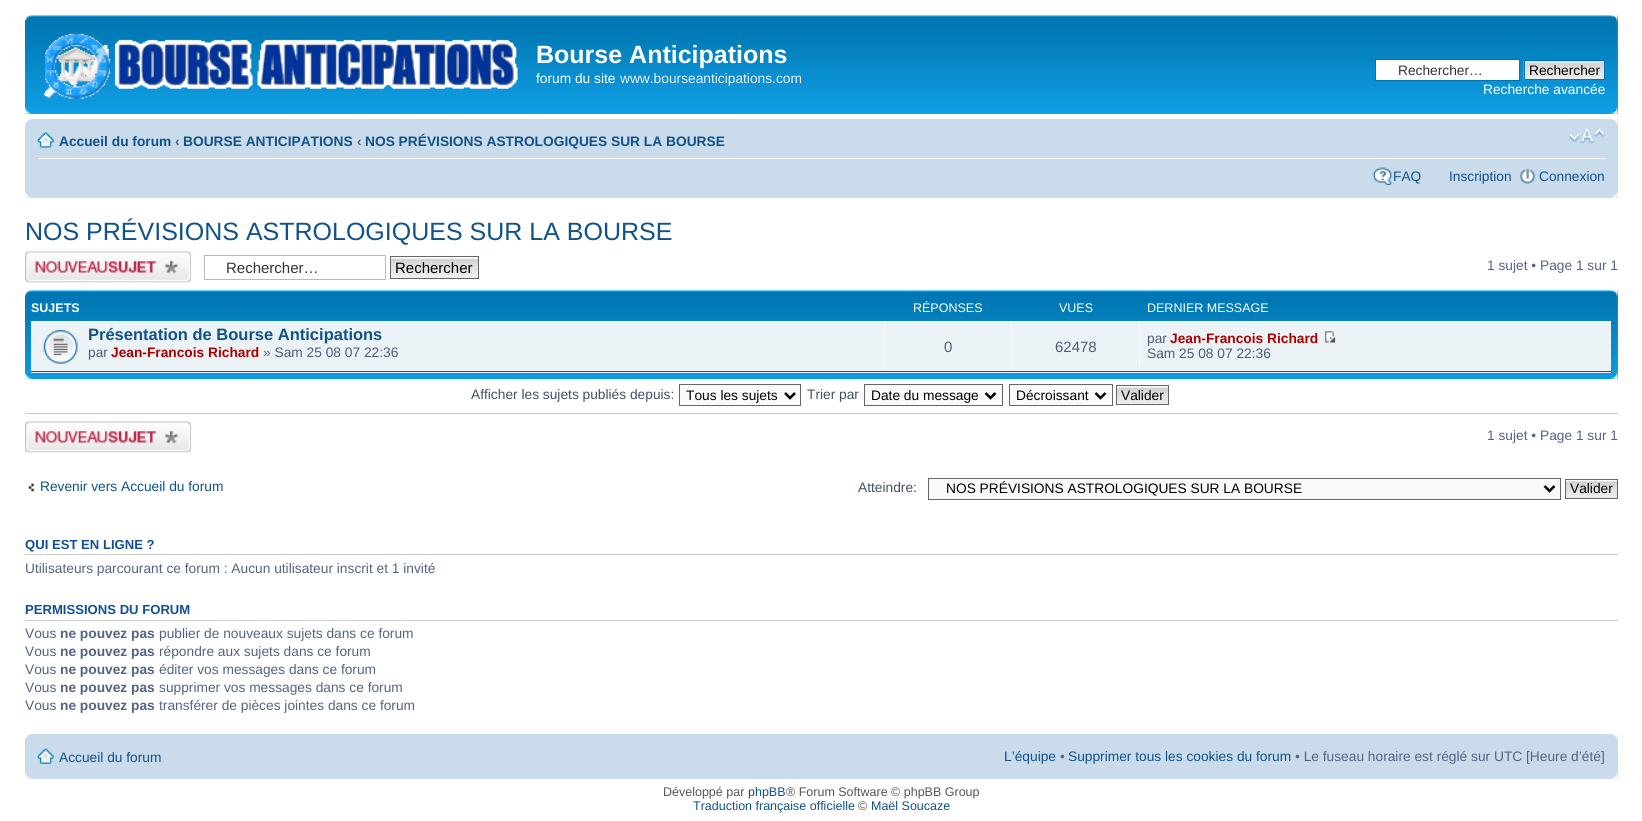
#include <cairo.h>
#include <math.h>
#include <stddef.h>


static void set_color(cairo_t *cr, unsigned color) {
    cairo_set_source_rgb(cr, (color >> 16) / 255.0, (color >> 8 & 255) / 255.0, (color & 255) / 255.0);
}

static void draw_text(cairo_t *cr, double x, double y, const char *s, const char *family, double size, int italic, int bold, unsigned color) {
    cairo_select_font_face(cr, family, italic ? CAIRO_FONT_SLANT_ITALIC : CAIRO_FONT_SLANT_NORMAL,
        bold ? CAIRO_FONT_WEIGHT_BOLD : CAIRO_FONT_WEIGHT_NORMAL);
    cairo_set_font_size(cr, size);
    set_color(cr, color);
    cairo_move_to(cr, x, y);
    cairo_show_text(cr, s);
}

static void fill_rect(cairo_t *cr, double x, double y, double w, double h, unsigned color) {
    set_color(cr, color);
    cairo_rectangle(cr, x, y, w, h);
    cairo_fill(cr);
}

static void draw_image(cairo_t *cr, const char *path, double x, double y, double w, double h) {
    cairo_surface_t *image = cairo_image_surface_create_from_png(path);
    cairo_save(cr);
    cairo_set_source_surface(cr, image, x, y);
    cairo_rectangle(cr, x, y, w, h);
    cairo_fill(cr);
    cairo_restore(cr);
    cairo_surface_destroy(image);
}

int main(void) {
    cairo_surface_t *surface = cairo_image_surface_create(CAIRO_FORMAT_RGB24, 1642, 821);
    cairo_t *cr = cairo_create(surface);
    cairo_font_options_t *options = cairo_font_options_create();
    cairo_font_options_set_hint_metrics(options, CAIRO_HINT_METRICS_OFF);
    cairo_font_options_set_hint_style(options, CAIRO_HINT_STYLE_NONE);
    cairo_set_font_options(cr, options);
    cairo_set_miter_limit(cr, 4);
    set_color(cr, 0xFFFFFF);
    cairo_paint(cr);
    fill_rect(cr, 25, 15, 1593, 99, 0x12A3EB);
    draw_image(cr, "assets/img1.png", 25, 15, 1593, 99);
    draw_image(cr, "assets/img2.png", 25, 15, 7, 7);
    draw_image(cr, "assets/img3.png", 1611, 15, 7, 7);
    draw_image(cr, "assets/img4.png", 43, 33, 475, 66);
    draw_text(cr, 536, 63, "Bourse Anticipations", "Liberation Sans", 25, 0, 1, 0xFFFFFF);
    draw_text(cr, 536, 83, "forum du site", "Liberation Sans", 13.75, 0, 0, 0xFFFFFF);
    draw_text(cr, 620, 83, "www.bourseanticipations.com", "Liberation Sans", 13.75, 0, 0, 0xEEEEEE);
    set_color(cr, 0xFFFFFF);
    cairo_rectangle(cr, 1375.5, 59.5, 144, 21);
    cairo_fill_preserve(cr);
    set_color(cr, 0x0075B0);
    cairo_set_line_width(cr, 1);
    cairo_stroke(cr);
    draw_text(cr, 1398, 75, "Rechercher…", "Liberation Sans", 13.75, 0, 0, 0x333333);
    draw_image(cr, "assets/img5.png", 1523, 61, 81, 19);
    cairo_rectangle(cr, 1524.5, 60.5, 80, 19);
    set_color(cr, 0x0075B0);
    cairo_stroke(cr);
    draw_text(cr, 1529, 75, "Rechercher", "Liberation Sans", 13.75, 0, 0, 0x000000);
    draw_text(cr, 1483, 94, "Recherche avancée", "Liberation Sans", 13.75, 0, 0, 0xFFFFFF);
    draw_image(cr, "assets/img6.png", 25, 107, 7, 7);
    draw_image(cr, "assets/img7.png", 1611, 107, 7, 7);
    fill_rect(cr, 25, 119, 1593, 79, 0xCADCEB);
    draw_image(cr, "assets/img8.png", 25, 119, 7, 6);
    draw_image(cr, "assets/img9.png", 1611, 119, 7, 6);
    fill_rect(cr, 38, 158, 1567, 1, 0xFFFFFF);
    draw_image(cr, "assets/img10.png", 37, 132, 17, 16);
    draw_text(cr, 59, 146, "Accueil du forum", "Liberation Sans", 13.75, 0, 1, 0x105289);
    draw_text(cr, 175, 146, "‹", "Liberation Sans", 13.75, 0, 1, 0x536482);
    draw_text(cr, 183, 146, "BOURSE ANTICIPATIONS", "Liberation Sans", 13.75, 0, 1, 0x105289);
    draw_text(cr, 357, 146, "‹", "Liberation Sans", 13.75, 0, 1, 0x536482);
    draw_text(cr, 365, 146, "NOS PRÉVISIONS ASTROLOGIQUES SUR LA BOURSE", "Liberation Sans", 13.75, 0, 1, 0x105289);
    draw_image(cr, "assets/img11.png", 1568, 128, 37, 16);
    draw_image(cr, "assets/img12.png", 1372, 167, 21, 18);
    draw_text(cr, 1393, 181, "FAQ", "Liberation Sans", 13.75, 0, 0, 0x105289);
    draw_text(cr, 1449, 181, "Inscription", "Liberation Sans", 13.75, 0, 0, 0x105289);
    draw_image(cr, "assets/img13.png", 1519, 168, 17, 16);
    draw_text(cr, 1539, 181, "Connexion", "Liberation Sans", 13.75, 0, 0, 0x105289);
    draw_image(cr, "assets/img14.png", 25, 191, 6, 7);
    draw_image(cr, "assets/img15.png", 1611, 191, 7, 7);
    draw_text(cr, 25, 240, "NOS PRÉVISIONS ASTROLOGIQUES SUR LA BOURSE", "Liberation Sans", 25, 0, 0, 0x105289);
    draw_image(cr, "assets/img16.png", 25, 251, 167, 32);
    cairo_rectangle(cr, 204.5, 255.5, 181, 24);
    set_color(cr, 0xB4BAC0);
    cairo_stroke(cr);
    draw_text(cr, 226, 273, "Rechercher…", "Liberation Sans", 15, 0, 0, 0x333333);
    fill_rect(cr, 391, 257, 87, 1, 0xFAFAFA);
    draw_image(cr, "assets/img17.png", 391, 258, 87, 20);
    cairo_rectangle(cr, 390.5, 256.5, 88, 22);
    set_color(cr, 0x666666);
    cairo_stroke(cr);
    draw_text(cr, 395, 273, "Rechercher", "Liberation Sans", 15, 0, 0, 0x000000);
    draw_text(cr, 1487, 270, "1 sujet • Page 1 sur 1", "Liberation Sans", 13.75, 0, 0, 0x536482);
    fill_rect(cr, 25, 290, 1593, 89, 0x12A3EB);
    draw_image(cr, "assets/img18.png", 25, 290, 1593, 89);
    draw_image(cr, "assets/img19.png", 25, 290, 7, 7);
    draw_image(cr, "assets/img3.png", 1611, 290, 7, 7);
    draw_text(cr, 31, 312, "SUJETS", "Liberation Sans", 12.5, 0, 1, 0xFFFFFF);
    draw_text(cr, 913, 312, "RÉPONSES", "Liberation Sans", 12.5, 0, 0, 0xFFFFFF);
    draw_text(cr, 1059, 312, "VUES", "Liberation Sans", 12.5, 0, 0, 0xFFFFFF);
    draw_text(cr, 1147, 312, "DERNIER MESSAGE", "Liberation Sans", 12.5, 0, 0, 0xFFFFFF);
    fill_rect(cr, 31, 322, 1580, 51, 0xECF3F7);
    fill_rect(cr, 31, 321, 1580, 1, 0xFFFFFF);
    fill_rect(cr, 31, 371, 1580, 1, 0x00608F);
    draw_image(cr, "assets/img20.png", 43, 330, 35, 34);
    draw_text(cr, 88, 340, "Présentation de Bourse Anticipations", "Liberation Sans", 16.5, 0, 1, 0x105289);
    draw_text(cr, 88, 357, "par", "Liberation Sans", 13.75, 0, 0, 0x4C5D77);
    draw_text(cr, 111, 357, "Jean-Francois Richard", "Liberation Sans", 13.75, 0, 1, 0xAA0000);
    draw_text(cr, 263, 357, "» Sam 25 08 07 22:36", "Liberation Sans", 13.75, 0, 0, 0x4C5D77);
    fill_rect(cr, 884, 325, 1, 44, 0xFFFFFF);
    draw_text(cr, 944, 352, "0", "Liberation Sans", 15, 0, 0, 0x4C5D77);
    fill_rect(cr, 1011, 325, 1, 44, 0xFFFFFF);
    draw_text(cr, 1055, 352, "62478", "Liberation Sans", 15, 0, 0, 0x4C5D77);
    fill_rect(cr, 1139, 325, 1, 40, 0xFFFFFF);
    draw_text(cr, 1147, 343, "par", "Liberation Sans", 13.75, 0, 0, 0x4C5D77);
    draw_text(cr, 1170, 343, "Jean-Francois Richard", "Liberation Sans", 13.75, 0, 1, 0xAA0000);
    draw_image(cr, "assets/img21.png", 1324, 331, 12, 12);
    draw_text(cr, 1147, 358, "Sam 25 08 07 22:36", "Liberation Sans", 13.75, 0, 0, 0x4C5D77);
    draw_image(cr, "assets/img22.png", 25, 372, 7, 7);
    draw_image(cr, "assets/img23.png", 1611, 372, 7, 7);
    draw_text(cr, 471, 399, "Afficher les sujets publiés depuis:", "Liberation Sans", 13.75, 0, 0, 0x425067);
    set_color(cr, 0xFAFAFA);
    cairo_rectangle(cr, 679.5, 384.5, 121, 21);
    cairo_fill_preserve(cr);
    set_color(cr, 0x666666);
    cairo_stroke(cr);
    cairo_new_path(cr);
    cairo_move_to(cr, 785, 393);
    cairo_line_to(cr, 790, 398);
    cairo_line_to(cr, 795, 393);
    set_color(cr, 0x000000);
    cairo_set_line_width(cr, 2.5);
    cairo_stroke(cr);
    draw_text(cr, 686, 400, "Tous les sujets", "Liberation Sans", 13.75, 0, 0, 0x000000);
    draw_text(cr, 807, 399, "Trier par", "Liberation Sans", 13.75, 0, 0, 0x425067);
    set_color(cr, 0xFAFAFA);
    cairo_rectangle(cr, 864.5, 384.5, 138, 21);
    cairo_fill_preserve(cr);
    set_color(cr, 0x666666);
    cairo_set_line_width(cr, 1);
    cairo_stroke(cr);
    cairo_new_path(cr);
    cairo_move_to(cr, 985.5, 393);
    cairo_line_to(cr, 990.5, 398);
    cairo_line_to(cr, 995.5, 393);
    set_color(cr, 0x000000);
    cairo_set_line_width(cr, 2.5);
    cairo_stroke(cr);
    draw_text(cr, 871, 400, "Date du message", "Liberation Sans", 13.75, 0, 0, 0x000000);
    set_color(cr, 0xFAFAFA);
    cairo_rectangle(cr, 1009.5, 384.5, 103, 21);
    cairo_fill_preserve(cr);
    set_color(cr, 0x666666);
    cairo_set_line_width(cr, 1);
    cairo_stroke(cr);
    cairo_new_path(cr);
    cairo_move_to(cr, 1095.5, 393);
    cairo_line_to(cr, 1100.5, 398);
    cairo_line_to(cr, 1105.5, 393);
    set_color(cr, 0x000000);
    cairo_set_line_width(cr, 2.5);
    cairo_stroke(cr);
    draw_text(cr, 1016, 400, "Décroissant", "Liberation Sans", 13.75, 0, 0, 0x000000);
    fill_rect(cr, 1117, 386, 51, 1, 0xFAFAFA);
    draw_image(cr, "assets/img24.png", 1117, 387, 51, 17);
    cairo_rectangle(cr, 1116.5, 385.5, 52, 19);
    set_color(cr, 0x666666);
    cairo_set_line_width(cr, 1);
    cairo_stroke(cr);
    draw_text(cr, 1121, 400, "Valider", "Liberation Sans", 13.75, 0, 0, 0x000000);
    fill_rect(cr, 25, 413, 1593, 1, 0xCCCCCC);
    draw_image(cr, "assets/img16.png", 25, 421, 167, 32);
    draw_text(cr, 1487, 440, "1 sujet • Page 1 sur 1", "Liberation Sans", 13.75, 0, 0, 0x536482);
    draw_image(cr, "assets/img25.png", 28, 483, 6, 9);
    draw_text(cr, 40, 491, "Revenir vers Accueil du forum", "Liberation Sans", 13.75, 0, 0, 0x105289);
    draw_text(cr, 858, 492, "Atteindre:", "Liberation Sans", 13.75, 0, 0, 0x425067);
    set_color(cr, 0xFAFAFA);
    cairo_rectangle(cr, 928.5, 478.5, 632, 21);
    cairo_fill_preserve(cr);
    set_color(cr, 0x666666);
    cairo_stroke(cr);
    cairo_new_path(cr);
    cairo_move_to(cr, 1544.5, 486);
    cairo_line_to(cr, 1549.5, 491);
    cairo_line_to(cr, 1554.5, 486);
    set_color(cr, 0x000000);
    cairo_set_line_width(cr, 2.5);
    cairo_stroke(cr);
    draw_text(cr, 946, 493, "NOS PRÉVISIONS ASTROLOGIQUES SUR LA BOURSE", "Liberation Sans", 13.75, 0, 0, 0x000000);
    draw_image(cr, "assets/img26.png", 1566, 480, 51, 18);
    cairo_rectangle(cr, 1565.5, 479.5, 52, 19);
    set_color(cr, 0x666666);
    cairo_set_line_width(cr, 1);
    cairo_stroke(cr);
    draw_text(cr, 1570, 493, "Valider", "Liberation Sans", 13.75, 0, 0, 0x000000);
    fill_rect(cr, 25, 554, 1593, 1, 0xCCCCCC);
    draw_text(cr, 25, 549, "QUI EST EN LIGNE ?", "Liberation Sans", 13.1, 0, 1, 0x115098);
    draw_text(cr, 25, 573, "Utilisateurs parcourant ce forum : Aucun utilisateur inscrit et 1 invité", "Liberation Sans", 13.75, 0, 0, 0x536482);
    fill_rect(cr, 25, 620, 1593, 1, 0xCCCCCC);
    draw_text(cr, 25, 614, "PERMISSIONS DU FORUM", "Liberation Sans", 13.1, 0, 1, 0x115098);
    draw_text(cr, 25, 638, "Vous", "Liberation Sans", 13.75, 0, 0, 0x536482);
    draw_text(cr, 60, 638, "ne pouvez pas", "Liberation Sans", 13.75, 0, 1, 0x536482);
    draw_text(cr, 159, 638, "publier de nouveaux sujets dans ce forum", "Liberation Sans", 13.75, 0, 0, 0x536482);
    draw_text(cr, 25, 656, "Vous", "Liberation Sans", 13.75, 0, 0, 0x536482);
    draw_text(cr, 60, 656, "ne pouvez pas", "Liberation Sans", 13.75, 0, 1, 0x536482);
    draw_text(cr, 159, 656, "répondre aux sujets dans ce forum", "Liberation Sans", 13.75, 0, 0, 0x536482);
    draw_text(cr, 25, 674, "Vous", "Liberation Sans", 13.75, 0, 0, 0x536482);
    draw_text(cr, 60, 674, "ne pouvez pas", "Liberation Sans", 13.75, 0, 1, 0x536482);
    draw_text(cr, 159, 674, "éditer vos messages dans ce forum", "Liberation Sans", 13.75, 0, 0, 0x536482);
    draw_text(cr, 25, 692, "Vous", "Liberation Sans", 13.75, 0, 0, 0x536482);
    draw_text(cr, 60, 692, "ne pouvez pas", "Liberation Sans", 13.75, 0, 1, 0x536482);
    draw_text(cr, 159, 692, "supprimer vos messages dans ce forum", "Liberation Sans", 13.75, 0, 0, 0x536482);
    draw_text(cr, 25, 710, "Vous", "Liberation Sans", 13.75, 0, 0, 0x536482);
    draw_text(cr, 60, 710, "ne pouvez pas", "Liberation Sans", 13.75, 0, 1, 0x536482);
    draw_text(cr, 159, 710, "transférer de pièces jointes dans ce forum", "Liberation Sans", 13.75, 0, 0, 0x536482);
    fill_rect(cr, 25, 734, 1593, 45, 0xCADCEB);
    draw_image(cr, "assets/img8.png", 25, 734, 7, 6);
    draw_image(cr, "assets/img9.png", 1611, 734, 7, 6);
    draw_image(cr, "assets/img27.png", 37, 748, 17, 16);
    draw_text(cr, 59, 762, "Accueil du forum", "Liberation Sans", 13.75, 0, 0, 0x105289);
    draw_text(cr, 1004, 761, "L’équipe", "Liberation Sans", 13.75, 0, 0, 0x105289);
    draw_text(cr, 1060, 761, "•", "Liberation Sans", 13.75, 0, 0, 0x536482);
    draw_text(cr, 1068, 761, "Supprimer tous les cookies du forum", "Liberation Sans", 13.75, 0, 0, 0x105289);
    draw_text(cr, 1295, 761, "• Le fuseau horaire est réglé sur UTC [Heure d’été]", "Liberation Sans", 13.75, 0, 0, 0x536482);
    draw_image(cr, "assets/img28.png", 25, 772, 6, 7);
    draw_image(cr, "assets/img29.png", 1611, 773, 7, 6);
    draw_text(cr, 663, 796, "Développé par", "Liberation Sans", 12.5, 0, 0, 0x555555);
    draw_text(cr, 748, 796, "phpBB", "Liberation Sans", 12.5, 0, 0, 0x105289);
    draw_text(cr, 786, 796, "® Forum Software © phpBB Group", "Liberation Sans", 12.5, 0, 0, 0x555555);
    draw_text(cr, 693, 810, "Traduction française officielle", "Liberation Sans", 12.5, 0, 0, 0x105289);
    draw_text(cr, 858, 810, "©", "Liberation Sans", 12.5, 0, 0, 0x555555);
    draw_text(cr, 871, 810, "Maël Soucaze", "Liberation Sans", 12.5, 0, 0, 0x105289);
    cairo_surface_write_to_png(surface, "output.png");
    cairo_font_options_destroy(options);
    cairo_destroy(cr);
    cairo_surface_destroy(surface);
    return 0;
}
